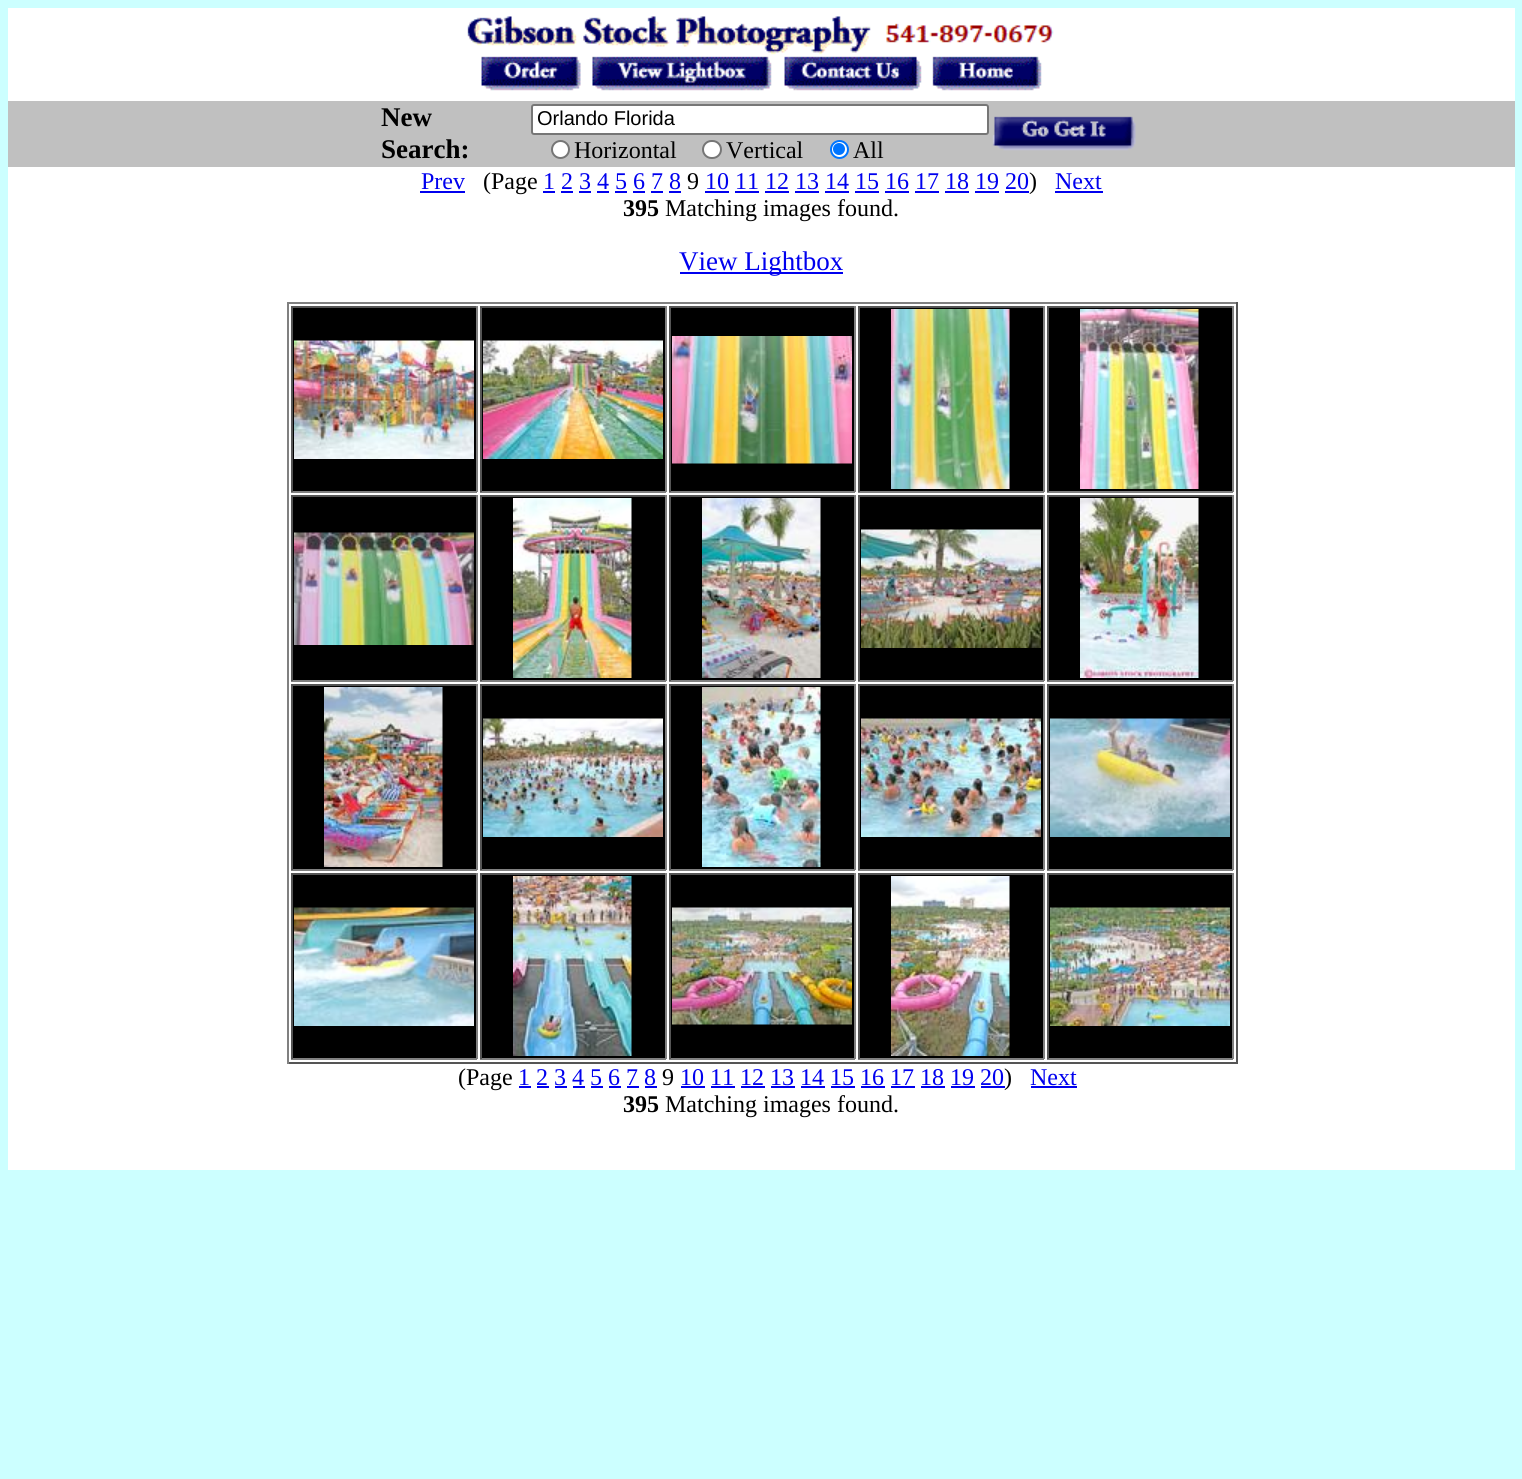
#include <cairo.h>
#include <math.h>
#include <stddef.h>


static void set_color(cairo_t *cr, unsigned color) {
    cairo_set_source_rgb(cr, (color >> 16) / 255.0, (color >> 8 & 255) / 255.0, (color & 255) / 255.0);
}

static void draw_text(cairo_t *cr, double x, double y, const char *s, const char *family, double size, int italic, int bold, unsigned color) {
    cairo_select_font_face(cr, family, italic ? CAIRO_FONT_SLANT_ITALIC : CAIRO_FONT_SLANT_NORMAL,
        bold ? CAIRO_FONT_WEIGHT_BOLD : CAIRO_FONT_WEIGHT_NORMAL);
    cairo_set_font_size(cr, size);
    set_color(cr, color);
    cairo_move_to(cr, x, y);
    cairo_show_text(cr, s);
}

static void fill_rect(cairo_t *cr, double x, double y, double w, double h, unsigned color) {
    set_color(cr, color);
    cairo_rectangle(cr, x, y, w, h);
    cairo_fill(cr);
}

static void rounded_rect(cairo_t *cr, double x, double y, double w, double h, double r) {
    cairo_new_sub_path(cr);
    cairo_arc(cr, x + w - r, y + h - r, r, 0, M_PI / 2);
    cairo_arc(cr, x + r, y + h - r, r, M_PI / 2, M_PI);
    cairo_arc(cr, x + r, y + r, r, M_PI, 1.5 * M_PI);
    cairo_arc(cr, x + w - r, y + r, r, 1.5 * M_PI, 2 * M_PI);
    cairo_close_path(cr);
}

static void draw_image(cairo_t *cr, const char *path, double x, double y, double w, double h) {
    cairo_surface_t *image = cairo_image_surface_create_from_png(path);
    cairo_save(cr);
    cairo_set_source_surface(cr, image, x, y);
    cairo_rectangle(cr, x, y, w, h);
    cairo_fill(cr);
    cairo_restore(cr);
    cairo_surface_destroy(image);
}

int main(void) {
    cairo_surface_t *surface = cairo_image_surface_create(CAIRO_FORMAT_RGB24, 1522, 1479);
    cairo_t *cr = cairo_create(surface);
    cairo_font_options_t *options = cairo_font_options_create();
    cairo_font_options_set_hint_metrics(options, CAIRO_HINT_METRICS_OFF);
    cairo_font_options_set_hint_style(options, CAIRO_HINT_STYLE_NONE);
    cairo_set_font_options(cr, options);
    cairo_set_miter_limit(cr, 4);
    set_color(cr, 0xCCFFFF);
    cairo_paint(cr);
    fill_rect(cr, 8, 101, 1507, 66, 0xC0C0C0);
    fill_rect(cr, 8, 8, 1507, 93, 0xFFFFFF);
    draw_image(cr, "assets/img1.png", 467, 16, 587, 75);
    draw_text(cr, 381, 126, "New", "Liberation Serif", 27, 0, 1, 0x000000);
    draw_text(cr, 381, 158, "Search:", "Liberation Serif", 27, 0, 1, 0x000000);
    set_color(cr, 0xFFFFFF);
    rounded_rect(cr, 532, 105, 456, 29, 2);
    cairo_fill_preserve(cr);
    set_color(cr, 0x767676);
    cairo_stroke(cr);
    draw_text(cr, 537, 125, "Orlando Florida", "Liberation Sans", 20, 0, 0, 0x000000);
    set_color(cr, 0xFFFFFF);
    cairo_new_path(cr);
    cairo_arc(cr, 560.5, 149.5, 8.5, 0, 2 * M_PI);
    cairo_fill_preserve(cr);
    set_color(cr, 0x767676);
    cairo_stroke(cr);
    draw_text(cr, 574, 158, "Horizontal", "Liberation Serif", 24, 0, 0, 0x000000);
    set_color(cr, 0xFFFFFF);
    rounded_rect(cr, 703, 141, 18, 17, 8.5);
    cairo_fill_preserve(cr);
    set_color(cr, 0x767676);
    cairo_stroke(cr);
    draw_text(cr, 726, 158, "Vertical", "Liberation Serif", 24, 0, 0, 0x000000);
    set_color(cr, 0xFFFFFF);
    cairo_new_path(cr);
    cairo_arc(cr, 839.5, 149.5, 8.5, 0, 2 * M_PI);
    cairo_fill_preserve(cr);
    set_color(cr, 0x0075FF);
    cairo_stroke(cr);
    cairo_arc(cr, 839, 149, 6, 0, 2 * M_PI);
    cairo_fill(cr);
    draw_text(cr, 853, 158, "All", "Liberation Serif", 24, 0, 0, 0x000000);
    draw_image(cr, "assets/img2.png", 992, 116, 144, 35);
    fill_rect(cr, 8, 167, 1507, 1003, 0xFFFFFF);
    draw_text(cr, 421, 189, "Prev", "Liberation Serif", 24, 0, 0, 0x0000EE);
    fill_rect(cr, 420, 191, 45, 2, 0x0000EE);
    draw_text(cr, 483, 189, "(Page", "Liberation Serif", 24, 0, 0, 0x000000);
    draw_text(cr, 543, 189, "1 2 3 4 5 6 7 8", "Liberation Serif", 24, 0, 0, 0x0000EE);
    fill_rect(cr, 543, 191, 12, 2, 0x0000EE);
    draw_text(cr, 687, 189, "9", "Liberation Serif", 24, 0, 0, 0x000000);
    draw_text(cr, 705, 189, "10 11 12 13 14 15 16 17 18 19 20", "Liberation Serif", 24, 0, 0, 0x0000EE);
    fill_rect(cr, 705, 191, 24, 2, 0x0000EE);
    draw_text(cr, 1029, 189, ")", "Liberation Serif", 24, 0, 0, 0x000000);
    draw_text(cr, 1055, 189, "Next", "Liberation Serif", 24, 0, 0, 0x0000EE);
    fill_rect(cr, 1055, 191, 48, 2, 0x0000EE);
    fill_rect(cr, 561, 191, 12, 2, 0x0000EE);
    fill_rect(cr, 579, 191, 12, 2, 0x0000EE);
    fill_rect(cr, 597, 191, 12, 2, 0x0000EE);
    fill_rect(cr, 615, 191, 12, 2, 0x0000EE);
    fill_rect(cr, 633, 191, 12, 2, 0x0000EE);
    fill_rect(cr, 651, 191, 12, 2, 0x0000EE);
    fill_rect(cr, 669, 191, 12, 2, 0x0000EE);
    fill_rect(cr, 735, 191, 24, 2, 0x0000EE);
    fill_rect(cr, 765, 191, 24, 2, 0x0000EE);
    fill_rect(cr, 795, 191, 24, 2, 0x0000EE);
    fill_rect(cr, 825, 191, 24, 2, 0x0000EE);
    fill_rect(cr, 855, 191, 24, 2, 0x0000EE);
    fill_rect(cr, 885, 191, 24, 2, 0x0000EE);
    fill_rect(cr, 915, 191, 24, 2, 0x0000EE);
    fill_rect(cr, 945, 191, 24, 2, 0x0000EE);
    fill_rect(cr, 975, 191, 24, 2, 0x0000EE);
    fill_rect(cr, 1005, 191, 24, 2, 0x0000EE);
    draw_text(cr, 623, 216, "395", "Liberation Serif", 24, 0, 1, 0x000000);
    draw_text(cr, 665, 216, "Matching images found.", "Liberation Serif", 24, 0, 0, 0x000000);
    fill_rect(cr, 680, 272, 163, 2, 0x0000EE);
    draw_text(cr, 679, 270, "View Lightbox", "Liberation Serif", 27, 0, 0, 0x0000EE);
    fill_rect(cr, 287, 302, 951, 2, 0x808080);
    fill_rect(cr, 1236, 302, 2, 762, 0x555555);
    fill_rect(cr, 287, 1062, 951, 2, 0x555555);
    fill_rect(cr, 287, 302, 2, 762, 0x808080);
    fill_rect(cr, 293, 308, 183, 183, 0x000000);
    fill_rect(cr, 291, 306, 186, 2, 0x555555);
    fill_rect(cr, 476, 306, 2, 186, 0x808080);
    fill_rect(cr, 291, 491, 186, 2, 0x808080);
    fill_rect(cr, 291, 306, 2, 186, 0x555555);
    draw_image(cr, "assets/img3.png", 294, 340, 180, 119);
    fill_rect(cr, 482, 308, 183, 183, 0x000000);
    fill_rect(cr, 480, 306, 186, 2, 0x555555);
    fill_rect(cr, 665, 306, 2, 186, 0x808080);
    fill_rect(cr, 480, 491, 186, 2, 0x808080);
    fill_rect(cr, 480, 306, 2, 186, 0x555555);
    draw_image(cr, "assets/img4.png", 483, 340, 180, 119);
    fill_rect(cr, 671, 308, 183, 183, 0x000000);
    fill_rect(cr, 669, 306, 186, 2, 0x555555);
    fill_rect(cr, 854, 306, 2, 186, 0x808080);
    fill_rect(cr, 669, 491, 186, 2, 0x808080);
    fill_rect(cr, 669, 306, 2, 186, 0x555555);
    draw_image(cr, "assets/img5.png", 672, 336, 180, 128);
    fill_rect(cr, 860, 308, 183, 183, 0x000000);
    fill_rect(cr, 858, 306, 186, 2, 0x555555);
    fill_rect(cr, 1043, 306, 2, 186, 0x808080);
    fill_rect(cr, 858, 491, 186, 2, 0x808080);
    fill_rect(cr, 858, 306, 2, 186, 0x555555);
    draw_image(cr, "assets/img6.png", 891, 309, 119, 180);
    fill_rect(cr, 1049, 308, 183, 183, 0x000000);
    fill_rect(cr, 1047, 306, 186, 2, 0x555555);
    fill_rect(cr, 1232, 306, 2, 186, 0x808080);
    fill_rect(cr, 1047, 491, 186, 2, 0x808080);
    fill_rect(cr, 1047, 306, 2, 186, 0x555555);
    draw_image(cr, "assets/img7.png", 1080, 309, 119, 180);
    fill_rect(cr, 293, 497, 183, 183, 0x000000);
    fill_rect(cr, 291, 495, 186, 2, 0x555555);
    fill_rect(cr, 476, 495, 2, 186, 0x808080);
    fill_rect(cr, 291, 680, 186, 2, 0x808080);
    fill_rect(cr, 291, 495, 2, 186, 0x555555);
    draw_image(cr, "assets/img8.png", 294, 532, 180, 113);
    fill_rect(cr, 482, 497, 183, 183, 0x000000);
    fill_rect(cr, 480, 495, 186, 2, 0x555555);
    fill_rect(cr, 665, 495, 2, 186, 0x808080);
    fill_rect(cr, 480, 680, 186, 2, 0x808080);
    fill_rect(cr, 480, 495, 2, 186, 0x555555);
    draw_image(cr, "assets/img9.png", 513, 498, 119, 180);
    fill_rect(cr, 671, 497, 183, 183, 0x000000);
    fill_rect(cr, 669, 495, 186, 2, 0x555555);
    fill_rect(cr, 854, 495, 2, 186, 0x808080);
    fill_rect(cr, 669, 680, 186, 2, 0x808080);
    fill_rect(cr, 669, 495, 2, 186, 0x555555);
    draw_image(cr, "assets/img10.png", 702, 498, 119, 180);
    fill_rect(cr, 860, 497, 183, 183, 0x000000);
    fill_rect(cr, 858, 495, 186, 2, 0x555555);
    fill_rect(cr, 1043, 495, 2, 186, 0x808080);
    fill_rect(cr, 858, 680, 186, 2, 0x808080);
    fill_rect(cr, 858, 495, 2, 186, 0x555555);
    draw_image(cr, "assets/img11.png", 861, 529, 180, 119);
    fill_rect(cr, 1049, 497, 183, 183, 0x000000);
    fill_rect(cr, 1047, 495, 186, 2, 0x555555);
    fill_rect(cr, 1232, 495, 2, 186, 0x808080);
    fill_rect(cr, 1047, 680, 186, 2, 0x808080);
    fill_rect(cr, 1047, 495, 2, 186, 0x555555);
    draw_image(cr, "assets/img12.png", 1080, 498, 119, 180);
    fill_rect(cr, 293, 686, 183, 183, 0x000000);
    fill_rect(cr, 291, 684, 186, 2, 0x555555);
    fill_rect(cr, 476, 684, 2, 186, 0x808080);
    fill_rect(cr, 291, 869, 186, 2, 0x808080);
    fill_rect(cr, 291, 684, 2, 186, 0x555555);
    draw_image(cr, "assets/img13.png", 324, 687, 119, 180);
    fill_rect(cr, 482, 686, 183, 183, 0x000000);
    fill_rect(cr, 480, 684, 186, 2, 0x555555);
    fill_rect(cr, 665, 684, 2, 186, 0x808080);
    fill_rect(cr, 480, 869, 186, 2, 0x808080);
    fill_rect(cr, 480, 684, 2, 186, 0x555555);
    draw_image(cr, "assets/img14.png", 483, 718, 180, 119);
    fill_rect(cr, 671, 686, 183, 183, 0x000000);
    fill_rect(cr, 669, 684, 186, 2, 0x555555);
    fill_rect(cr, 854, 684, 2, 186, 0x808080);
    fill_rect(cr, 669, 869, 186, 2, 0x808080);
    fill_rect(cr, 669, 684, 2, 186, 0x555555);
    draw_image(cr, "assets/img15.png", 702, 687, 119, 180);
    fill_rect(cr, 860, 686, 183, 183, 0x000000);
    fill_rect(cr, 858, 684, 186, 2, 0x555555);
    fill_rect(cr, 1043, 684, 2, 186, 0x808080);
    fill_rect(cr, 858, 869, 186, 2, 0x808080);
    fill_rect(cr, 858, 684, 2, 186, 0x555555);
    draw_image(cr, "assets/img16.png", 861, 718, 180, 119);
    fill_rect(cr, 1049, 686, 183, 183, 0x000000);
    fill_rect(cr, 1047, 684, 186, 2, 0x555555);
    fill_rect(cr, 1232, 684, 2, 186, 0x808080);
    fill_rect(cr, 1047, 869, 186, 2, 0x808080);
    fill_rect(cr, 1047, 684, 2, 186, 0x555555);
    draw_image(cr, "assets/img17.png", 1050, 718, 180, 119);
    fill_rect(cr, 293, 875, 183, 183, 0x000000);
    fill_rect(cr, 291, 873, 186, 2, 0x555555);
    fill_rect(cr, 476, 873, 2, 186, 0x808080);
    fill_rect(cr, 291, 1058, 186, 2, 0x808080);
    fill_rect(cr, 291, 873, 2, 186, 0x555555);
    draw_image(cr, "assets/img18.png", 294, 907, 180, 119);
    fill_rect(cr, 482, 875, 183, 183, 0x000000);
    fill_rect(cr, 480, 873, 186, 2, 0x555555);
    fill_rect(cr, 665, 873, 2, 186, 0x808080);
    fill_rect(cr, 480, 1058, 186, 2, 0x808080);
    fill_rect(cr, 480, 873, 2, 186, 0x555555);
    draw_image(cr, "assets/img19.png", 513, 876, 119, 180);
    fill_rect(cr, 671, 875, 183, 183, 0x000000);
    fill_rect(cr, 669, 873, 186, 2, 0x555555);
    fill_rect(cr, 854, 873, 2, 186, 0x808080);
    fill_rect(cr, 669, 1058, 186, 2, 0x808080);
    fill_rect(cr, 669, 873, 2, 186, 0x555555);
    draw_image(cr, "assets/img20.png", 672, 907, 180, 118);
    fill_rect(cr, 860, 875, 183, 183, 0x000000);
    fill_rect(cr, 858, 873, 186, 2, 0x555555);
    fill_rect(cr, 1043, 873, 2, 186, 0x808080);
    fill_rect(cr, 858, 1058, 186, 2, 0x808080);
    fill_rect(cr, 858, 873, 2, 186, 0x555555);
    draw_image(cr, "assets/img21.png", 891, 876, 119, 180);
    fill_rect(cr, 1049, 875, 183, 183, 0x000000);
    fill_rect(cr, 1047, 873, 186, 2, 0x555555);
    fill_rect(cr, 1232, 873, 2, 186, 0x808080);
    fill_rect(cr, 1047, 1058, 186, 2, 0x808080);
    fill_rect(cr, 1047, 873, 2, 186, 0x555555);
    draw_image(cr, "assets/img22.png", 1050, 907, 180, 119);
    draw_text(cr, 458, 1085, "(Page", "Liberation Serif", 24, 0, 0, 0x000000);
    draw_text(cr, 518, 1085, "1 2 3 4 5 6 7 8", "Liberation Serif", 24, 0, 0, 0x0000EE);
    fill_rect(cr, 519, 1086, 12, 2, 0x0000EE);
    draw_text(cr, 662, 1085, "9", "Liberation Serif", 24, 0, 0, 0x000000);
    draw_text(cr, 680, 1085, "10 11 12 13 14 15 16 17 18 19 20", "Liberation Serif", 24, 0, 0, 0x0000EE);
    fill_rect(cr, 681, 1086, 24, 2, 0x0000EE);
    draw_text(cr, 1004, 1085, ")", "Liberation Serif", 24, 0, 0, 0x000000);
    draw_text(cr, 1030, 1085, "Next", "Liberation Serif", 24, 0, 0, 0x0000EE);
    fill_rect(cr, 1031, 1086, 46, 2, 0x0000EE);
    fill_rect(cr, 537, 1086, 12, 2, 0x0000EE);
    fill_rect(cr, 555, 1086, 12, 2, 0x0000EE);
    fill_rect(cr, 573, 1086, 12, 2, 0x0000EE);
    fill_rect(cr, 591, 1086, 12, 2, 0x0000EE);
    fill_rect(cr, 609, 1086, 12, 2, 0x0000EE);
    fill_rect(cr, 627, 1086, 12, 2, 0x0000EE);
    fill_rect(cr, 645, 1086, 12, 2, 0x0000EE);
    fill_rect(cr, 711, 1086, 24, 2, 0x0000EE);
    fill_rect(cr, 741, 1086, 24, 2, 0x0000EE);
    fill_rect(cr, 771, 1086, 24, 2, 0x0000EE);
    fill_rect(cr, 801, 1086, 24, 2, 0x0000EE);
    fill_rect(cr, 831, 1086, 24, 2, 0x0000EE);
    fill_rect(cr, 861, 1086, 24, 2, 0x0000EE);
    fill_rect(cr, 891, 1086, 24, 2, 0x0000EE);
    fill_rect(cr, 921, 1086, 24, 2, 0x0000EE);
    fill_rect(cr, 951, 1086, 24, 2, 0x0000EE);
    fill_rect(cr, 981, 1086, 24, 2, 0x0000EE);
    draw_text(cr, 623, 1112, "395", "Liberation Serif", 24, 0, 1, 0x000000);
    draw_text(cr, 665, 1112, "Matching images found.", "Liberation Serif", 24, 0, 0, 0x000000);
    cairo_surface_write_to_png(surface, "output.png");
    cairo_font_options_destroy(options);
    cairo_destroy(cr);
    cairo_surface_destroy(surface);
    return 0;
}
